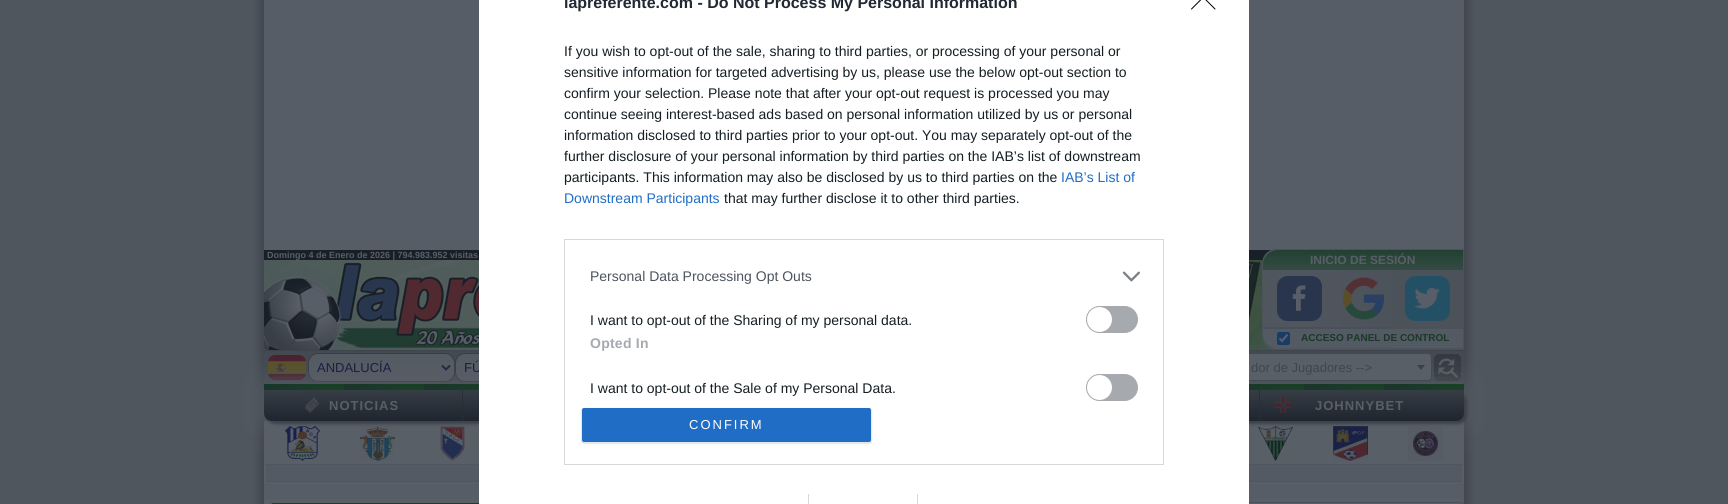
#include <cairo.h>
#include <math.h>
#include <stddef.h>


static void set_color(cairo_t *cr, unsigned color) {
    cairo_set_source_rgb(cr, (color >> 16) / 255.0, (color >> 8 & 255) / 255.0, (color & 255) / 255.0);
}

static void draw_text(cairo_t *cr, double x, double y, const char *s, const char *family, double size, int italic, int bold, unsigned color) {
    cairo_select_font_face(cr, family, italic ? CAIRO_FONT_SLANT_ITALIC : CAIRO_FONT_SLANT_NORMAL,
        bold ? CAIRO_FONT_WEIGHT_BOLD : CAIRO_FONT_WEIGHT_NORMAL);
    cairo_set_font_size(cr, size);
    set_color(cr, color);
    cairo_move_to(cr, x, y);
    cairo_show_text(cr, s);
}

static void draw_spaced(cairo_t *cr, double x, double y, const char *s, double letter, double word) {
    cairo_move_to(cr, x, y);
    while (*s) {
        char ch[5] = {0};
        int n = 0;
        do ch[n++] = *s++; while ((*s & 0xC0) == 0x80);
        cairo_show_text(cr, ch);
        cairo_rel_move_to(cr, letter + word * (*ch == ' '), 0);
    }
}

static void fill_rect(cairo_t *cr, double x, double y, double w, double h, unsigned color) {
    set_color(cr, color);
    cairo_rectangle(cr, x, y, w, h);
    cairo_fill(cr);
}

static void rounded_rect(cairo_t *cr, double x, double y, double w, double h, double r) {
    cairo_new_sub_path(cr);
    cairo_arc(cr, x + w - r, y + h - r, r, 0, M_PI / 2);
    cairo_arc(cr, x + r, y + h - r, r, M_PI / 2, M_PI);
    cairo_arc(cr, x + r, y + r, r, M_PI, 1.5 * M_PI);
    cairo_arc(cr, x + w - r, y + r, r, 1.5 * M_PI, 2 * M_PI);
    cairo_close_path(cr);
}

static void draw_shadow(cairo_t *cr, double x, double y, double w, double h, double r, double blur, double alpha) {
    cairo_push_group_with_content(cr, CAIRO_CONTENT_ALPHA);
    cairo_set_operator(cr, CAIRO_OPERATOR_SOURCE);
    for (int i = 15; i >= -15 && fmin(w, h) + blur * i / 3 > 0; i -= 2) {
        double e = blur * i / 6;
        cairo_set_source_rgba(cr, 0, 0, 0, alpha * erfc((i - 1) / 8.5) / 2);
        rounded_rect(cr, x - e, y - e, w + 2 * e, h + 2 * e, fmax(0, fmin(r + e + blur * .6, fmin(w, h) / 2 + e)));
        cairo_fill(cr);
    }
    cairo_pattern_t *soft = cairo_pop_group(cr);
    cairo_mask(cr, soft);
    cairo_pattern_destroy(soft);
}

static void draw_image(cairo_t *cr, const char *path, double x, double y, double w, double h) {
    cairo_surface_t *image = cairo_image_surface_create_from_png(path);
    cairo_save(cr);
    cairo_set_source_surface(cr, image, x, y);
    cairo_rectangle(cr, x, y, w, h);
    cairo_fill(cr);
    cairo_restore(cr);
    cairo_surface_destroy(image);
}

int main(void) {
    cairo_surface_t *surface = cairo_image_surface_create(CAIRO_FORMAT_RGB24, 1728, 504);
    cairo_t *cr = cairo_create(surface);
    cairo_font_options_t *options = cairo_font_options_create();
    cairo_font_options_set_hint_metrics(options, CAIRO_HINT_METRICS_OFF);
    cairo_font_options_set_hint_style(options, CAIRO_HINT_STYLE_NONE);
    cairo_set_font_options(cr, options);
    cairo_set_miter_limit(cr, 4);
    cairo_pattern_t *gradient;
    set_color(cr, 0x50565E);
    cairo_paint(cr);
    set_color(cr, 0x3B4149);
    draw_shadow(cr, 261, -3, 1206, 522, 0, 5, 1);
    fill_rect(cr, 264, 0, 1200, 499, 0x565D66);
    fill_rect(cr, 264, 250, 1008, 10, 0x191F27);
    fill_rect(cr, 264, 351, 1200, 33, 0x434951);
    fill_rect(cr, 264, 350, 1200, 1, 0x3F454D);
    draw_image(cr, "assets/img6.png", 268, 355, 38, 25);
    set_color(cr, 0x555B63);
    rounded_rect(cr, 308.5, 353.5, 146, 28, 9.5);
    cairo_fill_preserve(cr);
    set_color(cr, 0x363C45);
    cairo_set_line_width(cr, 1);
    cairo_stroke(cr);
    cairo_new_path(cr);
    cairo_move_to(cr, 442, 365.5);
    cairo_line_to(cr, 446, 369.5);
    cairo_line_to(cr, 450, 365.5);
    set_color(cr, 0x191F41);
    cairo_set_line_width(cr, 2);
    cairo_stroke(cr);
    set_color(cr, 0x555B63);
    rounded_rect(cr, 455.5, 353.5, 118, 28, 9.5);
    cairo_fill_preserve(cr);
    set_color(cr, 0x363C45);
    cairo_set_line_width(cr, 1);
    cairo_stroke(cr);
    set_color(cr, 0x333941);
    rounded_rect(cr, 1434, 354, 27, 27, 5);
    cairo_fill(cr);
    draw_image(cr, "assets/img7.png", 1438, 358, 20, 20);
    fill_rect(cr, 264, 423, 1200, 61, 0x595F67);
    fill_rect(cr, 266, 465, 1196, 16, 0x545A63);
    fill_rect(cr, 266, 464, 1196, 1, 0x50565E);
    set_color(cr, 0x595F67);
    draw_shadow(cr, 264, 384, 1200, 37, 0, 15, 1);
    draw_image(cr, "assets/img2.png", 264, 260, 1013, 90);
    draw_text(cr, 464, 372, "FÚ", "Liberation Sans", 13, 0, 0, 0x191F41);
    set_color(cr, 0x595F67);
    rounded_rect(cr, 1148.5, 353.5, 283, 27, 3.5);
    cairo_fill_preserve(cr);
    set_color(cr, 0x434952);
    cairo_stroke(cr);
    fill_rect(cr, 264, 413, 1200, 8, 0x4C525A);
    gradient = cairo_pattern_create_linear(264, 385, 344, 385);
    cairo_pattern_add_color_stop_rgba(gradient, 0.2, 0.098, 0.212, 0.169, 1);
    cairo_pattern_add_color_stop_rgba(gradient, 0.7, 0.098, 0.247, 0.153, 1);
    cairo_set_source(cr, gradient);
    cairo_pattern_destroy(gradient);
    cairo_rectangle(cr, 264, 384, 80, 6);
    cairo_fill(cr);
    gradient = cairo_pattern_create_linear(344, 385, 424, 385);
    cairo_pattern_add_color_stop_rgba(gradient, 0.2, 0.098, 0.212, 0.169, 1);
    cairo_pattern_add_color_stop_rgba(gradient, 0.7, 0.098, 0.247, 0.153, 1);
    cairo_set_source(cr, gradient);
    cairo_pattern_destroy(gradient);
    cairo_rectangle(cr, 344, 384, 80, 6);
    cairo_fill(cr);
    gradient = cairo_pattern_create_linear(424, 385, 504, 385);
    cairo_pattern_add_color_stop_rgba(gradient, 0.2, 0.098, 0.212, 0.169, 1);
    cairo_pattern_add_color_stop_rgba(gradient, 0.7, 0.098, 0.247, 0.153, 1);
    cairo_set_source(cr, gradient);
    cairo_pattern_destroy(gradient);
    cairo_rectangle(cr, 424, 384, 55, 6);
    cairo_fill(cr);
    gradient = cairo_pattern_create_linear(1224, 385, 1304, 385);
    cairo_pattern_add_color_stop_rgba(gradient, 0.2, 0.098, 0.212, 0.169, 1);
    cairo_pattern_add_color_stop_rgba(gradient, 0.7, 0.098, 0.247, 0.153, 1);
    cairo_set_source(cr, gradient);
    cairo_pattern_destroy(gradient);
    cairo_rectangle(cr, 1249, 384, 55, 6);
    cairo_fill(cr);
    gradient = cairo_pattern_create_linear(1304, 385, 1384, 385);
    cairo_pattern_add_color_stop_rgba(gradient, 0.2, 0.098, 0.212, 0.169, 1);
    cairo_pattern_add_color_stop_rgba(gradient, 0.7, 0.098, 0.247, 0.153, 1);
    cairo_set_source(cr, gradient);
    cairo_pattern_destroy(gradient);
    cairo_rectangle(cr, 1304, 384, 80, 6);
    cairo_fill(cr);
    gradient = cairo_pattern_create_linear(1384, 385, 1464, 385);
    cairo_pattern_add_color_stop_rgba(gradient, 0.2, 0.098, 0.212, 0.169, 1);
    cairo_pattern_add_color_stop_rgba(gradient, 0.7, 0.098, 0.247, 0.153, 1);
    cairo_set_source(cr, gradient);
    cairo_pattern_destroy(gradient);
    cairo_rectangle(cr, 1384, 384, 80, 6);
    cairo_fill(cr);
    draw_image(cr, "assets/img10.png", 285, 426, 35, 35);
    draw_image(cr, "assets/img11.png", 360, 426, 35, 35);
    draw_image(cr, "assets/img12.png", 440, 426, 25, 35);
    draw_image(cr, "assets/img13.png", 1258, 426, 35, 35);
    draw_image(cr, "assets/img14.png", 1333, 426, 35, 35);
    draw_image(cr, "assets/img15.png", 1408, 426, 35, 35);
    set_color(cr, 0x3B4149);
    draw_shadow(cr, 267, 393, 1200, 31, 8, 1.5, 1);
    gradient = cairo_pattern_create_linear(864, 421, 864, 390);
    cairo_pattern_add_color_stop_rgba(gradient, 0.07, 0.129, 0.153, 0.188, 1);
    cairo_pattern_add_color_stop_rgba(gradient, 1, 0.216, 0.239, 0.271, 1);
    cairo_set_source(cr, gradient);
    cairo_pattern_destroy(gradient);
    cairo_new_path(cr);
    cairo_move_to(cr, 264, 390);
    cairo_line_to(cr, 1464, 390);
    cairo_line_to(cr, 1464, 413);
    cairo_curve_to(cr, 1464, 417.5, 1460.5, 421, 1456, 421);
    cairo_line_to(cr, 272, 421);
    cairo_curve_to(cr, 267.5, 421, 264, 417.5, 264, 413);
    cairo_close_path(cr);
    cairo_fill(cr);
    fill_rect(cr, 266, 481, 1196, 1, 0x50565E);
    fill_rect(cr, 264, 499, 1200, 5, 0x595F67);
    set_color(cr, 0x3F454D);
    draw_shadow(cr, 695, 503, 768, 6, 2, 1, 1);
    draw_image(cr, "assets/img16.png", 1249, 503, 214, 1);
    rounded_rect(cr, 695.5, 502.5, 767, 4, 1.5);
    set_color(cr, 0x4C525A);
    cairo_stroke(cr);
    fill_rect(cr, 479, 0, 770, 504, 0xFFFFFF);
    draw_text(cr, 564, 8, "lapreferente.com - Do Not Process My Personal Information", "Liberation Sans", 16, 0, 1, 0x212934);
    draw_text(cr, 564, 56, "If you wish to opt-out of the sale, sharing to third parties, or processing of your personal or", "Liberation Sans", 14, 0, 0, 0x141E23);
    draw_text(cr, 564, 77, "sensitive information for targeted advertising by us, please use the below opt-out section to", "Liberation Sans", 14, 0, 0, 0x141E23);
    draw_text(cr, 564, 98, "confirm your selection. Please note that after your opt-out request is processed you may", "Liberation Sans", 14, 0, 0, 0x141E23);
    draw_text(cr, 564, 119, "continue seeing interest-based ads based on personal information utilized by us or personal", "Liberation Sans", 14, 0, 0, 0x141E23);
    draw_text(cr, 564, 140, "information disclosed to third parties prior to your opt-out. You may separately opt-out of the", "Liberation Sans", 14, 0, 0, 0x141E23);
    draw_text(cr, 564, 161, "further disclosure of your personal information by third parties on the IAB’s list of downstream", "Liberation Sans", 14, 0, 0, 0x141E23);
    draw_text(cr, 564, 182, "participants. This information may also be disclosed by us to third parties on the", "Liberation Sans", 14, 0, 0, 0x141E23);
    draw_text(cr, 1061, 182, "IAB’s List of", "Liberation Sans", 14, 0, 0, 0x206DC5);
    draw_text(cr, 564, 203, "Downstream Participants", "Liberation Sans", 14, 0, 0, 0x206DC5);
    draw_text(cr, 724, 203, "that may further disclose it to other third parties.", "Liberation Sans", 14, 0, 0, 0x141E23);
    cairo_rectangle(cr, 564.5, 239.5, 599, 225);
    set_color(cr, 0xD8D8D8);
    cairo_stroke(cr);
    draw_text(cr, 590, 281, "Personal Data Processing Opt Outs", "Liberation Sans", 14, 0, 0, 0x4D545D);
    draw_image(cr, "assets/img1.png", 1122, 271, 18, 11);
    draw_text(cr, 590, 325, "I want to opt-out of the Sharing of my personal data.", "Liberation Sans", 14, 0, 0, 0x141E23);
    set_color(cr, 0xA6A9AE);
    rounded_rect(cr, 1086.5, 306.5, 51, 26, 13);
    cairo_fill_preserve(cr);
    cairo_stroke(cr);
    set_color(cr, 0xFFFFFF);
    cairo_arc(cr, 1099.5, 319.5, 12.5, 0, 2 * M_PI);
    cairo_fill(cr);
    cairo_select_font_face(cr, "Liberation Sans", CAIRO_FONT_SLANT_NORMAL, CAIRO_FONT_WEIGHT_BOLD);
    set_color(cr, 0xA6A9AE);
    draw_spaced(cr, 590, 348, "Opted In", 0.25, 0);
    draw_text(cr, 590, 393, "I want to opt-out of the Sale of my Personal Data.", "Liberation Sans", 14, 0, 0, 0x141E23);
    set_color(cr, 0xA6A9AE);
    rounded_rect(cr, 1086.5, 374.5, 51, 26, 13);
    cairo_fill_preserve(cr);
    cairo_stroke(cr);
    set_color(cr, 0xFFFFFF);
    cairo_arc(cr, 1099.5, 387.5, 12.5, 0, 2 * M_PI);
    cairo_fill(cr);
    set_color(cr, 0x000000);
    draw_shadow(cr, 581, 408, 291, 36, 3, 0.5, 0.1);
    set_color(cr, 0x206DC5);
    rounded_rect(cr, 582, 408, 289, 34, 2);
    cairo_fill(cr);
    cairo_set_font_size(cr, 13);
    set_color(cr, 0xFFFFFF);
    draw_spaced(cr, 689, 429, "CONFIRM", 2, 0);
    cairo_new_path(cr);
    cairo_move_to(cr, 1191.5, -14.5);
    cairo_line_to(cr, 1215, 9);
    cairo_move_to(cr, 1215, -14.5);
    cairo_line_to(cr, 1191.5, 9);
    set_color(cr, 0x000000);
    cairo_set_line_cap(cr, CAIRO_LINE_CAP_ROUND);
    cairo_set_line_join(cr, CAIRO_LINE_JOIN_ROUND);
    cairo_stroke(cr);
    fill_rect(cr, 808, 494, 1, 10, 0xD8D8D8);
    fill_rect(cr, 917, 494, 1, 10, 0xD8D8D8);
    draw_text(cr, 267, 258, "Domingo 4 de Enero de 2026 | 794.983.952 visitas", "Liberation Sans", 9, 0, 1, 0x595F67);
    cairo_save(cr);
    cairo_new_path(cr);
    cairo_move_to(cr, 1277, 249);
    cairo_line_to(cr, 1464, 249);
    cairo_line_to(cr, 1464, 350);
    cairo_line_to(cr, 1277, 350);
    cairo_curve_to(cr, 1268.5, 350, 1262, 343.5, 1262, 335);
    cairo_line_to(cr, 1262, 264);
    cairo_curve_to(cr, 1262, 255.5, 1268.5, 249, 1277, 249);
    cairo_close_path(cr);
    cairo_clip(cr);
    gradient = cairo_pattern_create_linear(1263, 300, 1463, 300);
    cairo_pattern_add_color_stop_rgba(gradient, 0.2, 0.314, 0.337, 0.369, 1);
    cairo_pattern_add_color_stop_rgba(gradient, 0.7, 0.298, 0.322, 0.353, 1);
    cairo_set_source(cr, gradient);
    cairo_pattern_destroy(gradient);
    cairo_rectangle(cr, 1263, 249, 200, 101);
    cairo_fill(cr);
    cairo_restore(cr);
    cairo_new_path(cr);
    cairo_move_to(cr, 1277, 249.5);
    cairo_line_to(cr, 1463.5, 249.5);
    cairo_line_to(cr, 1463.5, 349.5);
    cairo_line_to(cr, 1277, 349.5);
    cairo_curve_to(cr, 1269, 349.5, 1262.5, 343, 1262.5, 335);
    cairo_line_to(cr, 1262.5, 264);
    cairo_curve_to(cr, 1262.5, 256, 1269, 249.5, 1277, 249.5);
    cairo_close_path(cr);
    set_color(cr, 0x4C525A);
    cairo_set_line_cap(cr, CAIRO_LINE_CAP_BUTT);
    cairo_set_line_join(cr, CAIRO_LINE_JOIN_MITER);
    cairo_stroke(cr);
    gradient = cairo_pattern_create_linear(1363, 250, 1363, 270);
    cairo_pattern_add_color_stop_rgba(gradient, 0, 0.133, 0.251, 0.192, 1);
    cairo_pattern_add_color_stop_rgba(gradient, 1, 0.204, 0.294, 0.263, 1);
    cairo_set_source(cr, gradient);
    cairo_pattern_destroy(gradient);
    cairo_new_path(cr);
    cairo_move_to(cr, 1278, 250);
    cairo_line_to(cr, 1463, 250);
    cairo_line_to(cr, 1463, 270);
    cairo_line_to(cr, 1263, 270);
    cairo_line_to(cr, 1263, 265);
    cairo_curve_to(cr, 1263, 256.5, 1269.5, 250, 1278, 250);
    cairo_close_path(cr);
    cairo_fill(cr);
    draw_text(cr, 1310, 264, "INICIO DE SESIÓN", "Liberation Sans", 12, 0, 1, 0x595F67);
    fill_rect(cr, 1263, 327, 128, 2, 0x4A5059);
    draw_image(cr, "assets/img3.png", 1277, 276, 45, 45);
    draw_image(cr, "assets/img4.png", 1342, 277, 43, 43);
    draw_image(cr, "assets/img5.png", 1405, 276, 45, 45);
    set_color(cr, 0x545A63);
    cairo_new_path(cr);
    cairo_move_to(cr, 1263, 329);
    cairo_line_to(cr, 1463, 329);
    cairo_line_to(cr, 1463, 348);
    cairo_line_to(cr, 1278, 348);
    cairo_curve_to(cr, 1269.5, 348, 1263, 341.5, 1263, 333);
    cairo_close_path(cr);
    cairo_fill(cr);
    set_color(cr, 0x193C67);
    rounded_rect(cr, 1277, 332, 13, 13, 2);
    cairo_fill(cr);
    cairo_new_path(cr);
    cairo_move_to(cr, 1279.5, 338.5);
    cairo_line_to(cr, 1282, 341);
    cairo_line_to(cr, 1287.5, 334.5);
    set_color(cr, 0x595F67);
    cairo_set_line_width(cr, 2.1);
    cairo_stroke(cr);
    draw_text(cr, 1301, 341, "ACCESO PANEL DE CONTROL", "Liberation Sans", 10, 0, 1, 0x193827);
    draw_text(cr, 317, 372, "ANDALUCÍA", "Liberation Sans", 13, 0, 0, 0x191F41);
    draw_text(cr, 1251, 372, "dor de Jugadores -->", "Liberation Sans", 13, 0, 0, 0x3F454D);
    set_color(cr, 0x3B4149);
    cairo_new_path(cr);
    cairo_move_to(cr, 1417, 365);
    cairo_line_to(cr, 1425, 365);
    cairo_line_to(cr, 1421, 370);
    cairo_close_path(cr);
    cairo_fill(cr);
    draw_image(cr, "assets/img8.png", 305, 397, 15, 16);
    fill_rect(cr, 462, 390, 1, 31, 0x282E36);
    cairo_select_font_face(cr, "Liberation Sans", CAIRO_FONT_SLANT_NORMAL, CAIRO_FONT_WEIGHT_BOLD);
    set_color(cr, 0x595F67);
    draw_spaced(cr, 329, 410, "NOTICIAS", 1, 0);
    fill_rect(cr, 1259, 390, 1, 31, 0x282E36);
    draw_image(cr, "assets/img9.png", 1275, 397, 16, 16);
    set_color(cr, 0x595F67);
    draw_spaced(cr, 1315, 410, "JOHNNYBET", 1, 0);
    cairo_save(cr);
    rounded_rect(cr, 267, 502, 424, 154, 10);
    cairo_clip(cr);
    gradient = cairo_pattern_create_linear(479, 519, 479, 503);
    cairo_pattern_add_color_stop_rgba(gradient, 0, 0.224, 0.298, 0.278, 1);
    cairo_pattern_add_color_stop_rgba(gradient, 1, 0.122, 0.235, 0.18, 1);
    cairo_set_source(cr, gradient);
    cairo_pattern_destroy(gradient);
    cairo_rectangle(cr, 268, 503, 211, 1);
    cairo_fill(cr);
    cairo_restore(cr);
    cairo_surface_write_to_png(surface, "output.png");
    cairo_font_options_destroy(options);
    cairo_destroy(cr);
    cairo_surface_destroy(surface);
    return 0;
}
